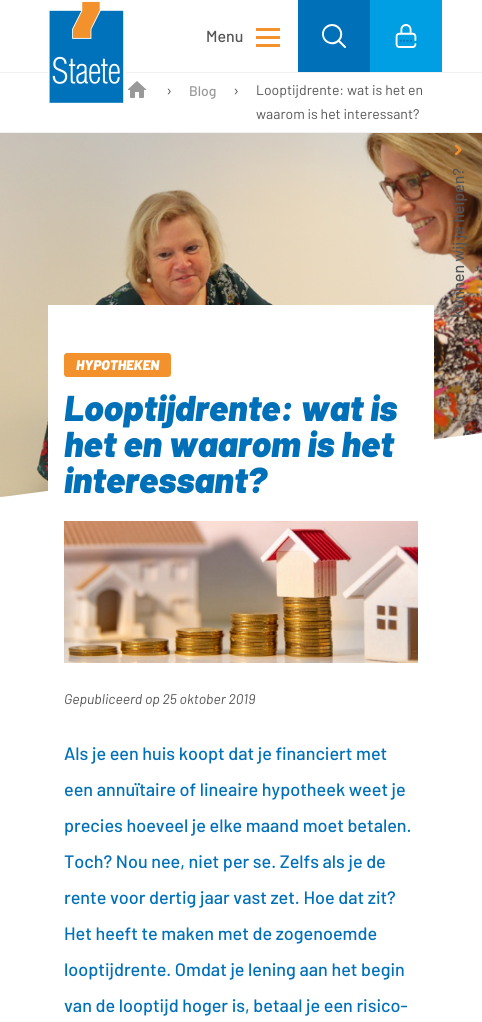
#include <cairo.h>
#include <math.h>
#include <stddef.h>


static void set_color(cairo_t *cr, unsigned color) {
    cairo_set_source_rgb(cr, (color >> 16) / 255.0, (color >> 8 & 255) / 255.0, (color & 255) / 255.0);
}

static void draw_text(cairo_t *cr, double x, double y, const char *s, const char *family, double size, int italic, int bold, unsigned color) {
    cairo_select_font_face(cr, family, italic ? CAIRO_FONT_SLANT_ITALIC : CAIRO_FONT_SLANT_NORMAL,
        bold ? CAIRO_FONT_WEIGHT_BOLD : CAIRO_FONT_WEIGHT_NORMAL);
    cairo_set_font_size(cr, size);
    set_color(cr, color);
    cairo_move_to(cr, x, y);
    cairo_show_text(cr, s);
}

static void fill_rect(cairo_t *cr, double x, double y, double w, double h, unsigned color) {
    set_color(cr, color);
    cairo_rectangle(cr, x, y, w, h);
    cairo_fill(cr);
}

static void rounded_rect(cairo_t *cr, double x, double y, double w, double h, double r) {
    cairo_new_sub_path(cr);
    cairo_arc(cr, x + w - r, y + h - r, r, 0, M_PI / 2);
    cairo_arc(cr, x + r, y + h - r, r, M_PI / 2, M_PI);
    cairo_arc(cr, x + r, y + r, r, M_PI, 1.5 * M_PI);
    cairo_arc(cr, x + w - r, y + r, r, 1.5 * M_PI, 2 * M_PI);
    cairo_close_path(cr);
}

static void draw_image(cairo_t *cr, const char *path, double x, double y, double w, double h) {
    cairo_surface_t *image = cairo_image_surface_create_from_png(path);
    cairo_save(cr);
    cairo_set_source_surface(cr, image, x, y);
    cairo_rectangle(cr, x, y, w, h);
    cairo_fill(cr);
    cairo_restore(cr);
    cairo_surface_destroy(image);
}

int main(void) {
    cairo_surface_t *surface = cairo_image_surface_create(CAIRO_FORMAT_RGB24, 482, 1022);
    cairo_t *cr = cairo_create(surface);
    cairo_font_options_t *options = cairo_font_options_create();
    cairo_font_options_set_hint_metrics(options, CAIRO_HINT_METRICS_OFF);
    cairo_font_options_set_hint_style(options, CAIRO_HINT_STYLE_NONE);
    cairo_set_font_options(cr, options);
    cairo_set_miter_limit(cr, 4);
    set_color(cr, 0xFFFFFF);
    cairo_paint(cr);
    fill_rect(cr, 0, 72, 482, 1, 0xF1F1F1);
    draw_image(cr, "assets/img1.png", 48, 1, 77, 102);
    draw_text(cr, 206, 42, "Menu", "Barlow Medium", 16, 0, 0, 0x555555);
    fill_rect(cr, 256, 28, 24, 3, 0xF3912D);
    fill_rect(cr, 256, 36, 24, 3, 0xF3912D);
    fill_rect(cr, 256, 44, 24, 3, 0xF3912D);
    fill_rect(cr, 298, 0, 72, 72, 0x0070B8);
    draw_image(cr, "assets/img2.png", 322, 24, 24, 24);
    fill_rect(cr, 370, 0, 72, 72, 0x009FE3);
    draw_image(cr, "assets/img3.png", 395, 24, 22, 24);
    fill_rect(cr, 0, 132, 482, 1, 0xF1F1F1);
    draw_image(cr, "assets/img4.png", 127, 81, 20, 17);
    draw_text(cr, 166, 96, "›", "Barlow", 16, 0, 0, 0x555555);
    draw_text(cr, 189, 96, "Blog", "Barlow Medium", 14, 0, 0, 0x999999);
    draw_text(cr, 233, 96, "›", "Barlow", 16, 0, 0, 0x555555);
    draw_text(cr, 256, 95, "Looptijdrente: wat is het en", "Barlow", 14, 0, 0, 0x555555);
    draw_text(cr, 256, 119, "waarom is het interessant?", "Barlow", 14, 0, 0, 0x555555);
    draw_image(cr, "assets/img6.png", 0, 133, 482, 364);
    draw_image(cr, "assets/img5.png", 455, 144, 7, 12);
    cairo_save(cr);
    cairo_translate(cr, 464, 318);
    cairo_rotate(cr, -90 * M_PI / 180);
    draw_text(cr, 0, 0, "Kunnen wij je helpen?", "Barlow Medium", 16, 0, 0, 0x555555);
    cairo_restore(cr);
    fill_rect(cr, 48, 305, 386, 186, 0xFFFFFF);
    set_color(cr, 0xF3912D);
    rounded_rect(cr, 64, 353, 107, 24, 3);
    cairo_fill(cr);
    draw_text(cr, 76, 370, "HYPOTHEKEN", "Barlow Black", 14, 1, 0, 0xFFFFFF);
    draw_text(cr, 64, 421, "Looptijdrente: wat is", "Barlow Black", 36, 1, 0, 0x0070B8);
    draw_text(cr, 64, 457, "het en waarom is het", "Barlow Black", 36, 1, 0, 0x0070B8);
    draw_text(cr, 64, 493, "interessant?", "Barlow Black", 36, 1, 0, 0x0070B8);
    draw_image(cr, "assets/img7.png", 64, 521, 354, 142);
    draw_text(cr, 64, 704, "Gepubliceerd op 25 oktober 2019", "Barlow", 14, 1, 0, 0x555555);
    draw_text(cr, 64, 760, "Als je een huis koopt dat je financiert met", "Barlow Medium", 18, 0, 0, 0x0070B8);
    draw_text(cr, 64, 796, "een annuïtaire of lineaire hypotheek weet je", "Barlow Medium", 18, 0, 0, 0x0070B8);
    draw_text(cr, 64, 832, "precies hoeveel je elke maand moet betalen.", "Barlow Medium", 18, 0, 0, 0x0070B8);
    draw_text(cr, 64, 868, "Toch? Nou nee, niet per se. Zelfs als je de", "Barlow Medium", 18, 0, 0, 0x0070B8);
    draw_text(cr, 64, 904, "rente voor dertig jaar vast zet. Hoe dat zit?", "Barlow Medium", 18, 0, 0, 0x0070B8);
    draw_text(cr, 64, 940, "Het heeft te maken met de zogenoemde", "Barlow Medium", 18, 0, 0, 0x0070B8);
    draw_text(cr, 64, 976, "looptijdrente. Omdat je lening aan het begin", "Barlow Medium", 18, 0, 0, 0x0070B8);
    draw_text(cr, 64, 1012, "van de looptijd hoger is, betaal je een risico-", "Barlow Medium", 18, 0, 0, 0x0070B8);
    cairo_surface_write_to_png(surface, "output.png");
    cairo_font_options_destroy(options);
    cairo_destroy(cr);
    cairo_surface_destroy(surface);
    return 0;
}
